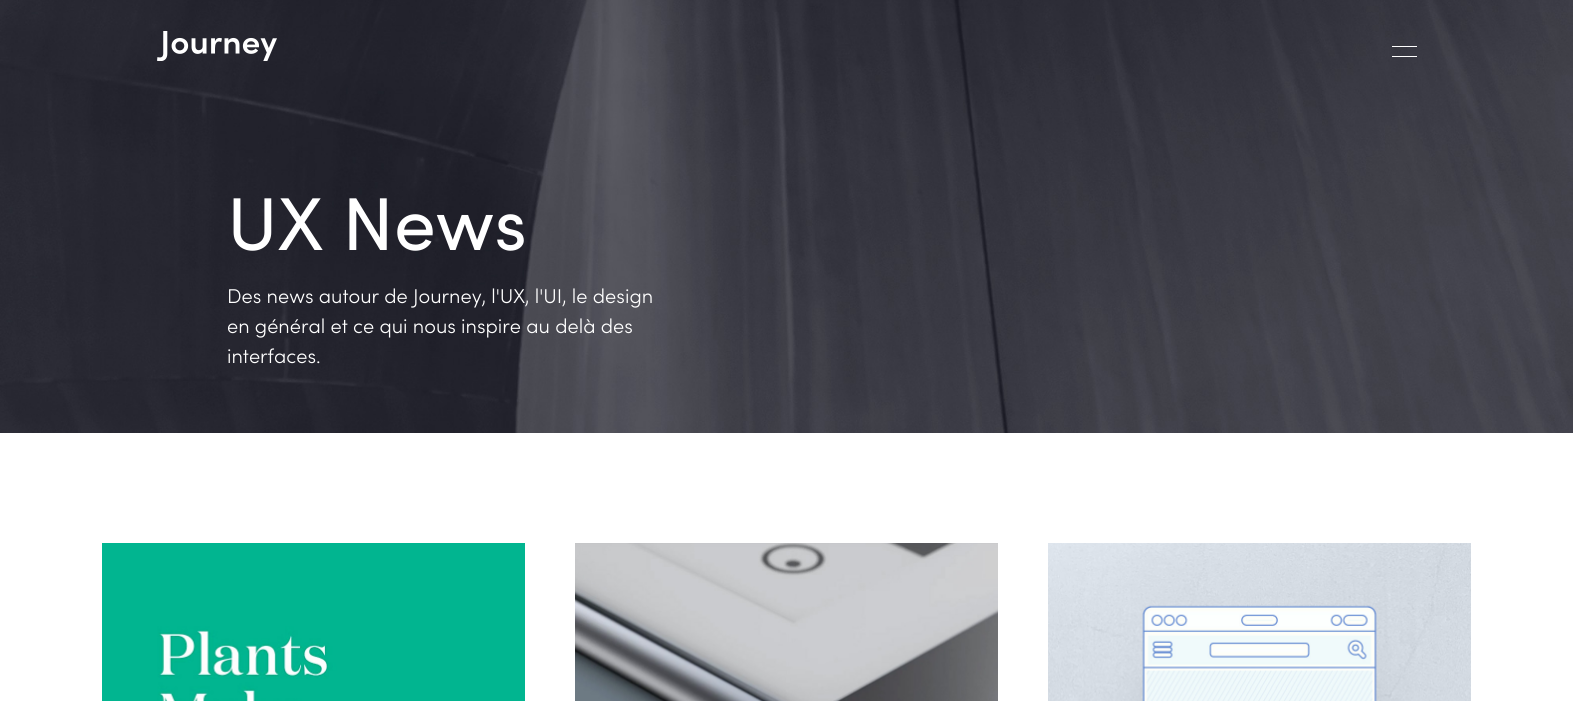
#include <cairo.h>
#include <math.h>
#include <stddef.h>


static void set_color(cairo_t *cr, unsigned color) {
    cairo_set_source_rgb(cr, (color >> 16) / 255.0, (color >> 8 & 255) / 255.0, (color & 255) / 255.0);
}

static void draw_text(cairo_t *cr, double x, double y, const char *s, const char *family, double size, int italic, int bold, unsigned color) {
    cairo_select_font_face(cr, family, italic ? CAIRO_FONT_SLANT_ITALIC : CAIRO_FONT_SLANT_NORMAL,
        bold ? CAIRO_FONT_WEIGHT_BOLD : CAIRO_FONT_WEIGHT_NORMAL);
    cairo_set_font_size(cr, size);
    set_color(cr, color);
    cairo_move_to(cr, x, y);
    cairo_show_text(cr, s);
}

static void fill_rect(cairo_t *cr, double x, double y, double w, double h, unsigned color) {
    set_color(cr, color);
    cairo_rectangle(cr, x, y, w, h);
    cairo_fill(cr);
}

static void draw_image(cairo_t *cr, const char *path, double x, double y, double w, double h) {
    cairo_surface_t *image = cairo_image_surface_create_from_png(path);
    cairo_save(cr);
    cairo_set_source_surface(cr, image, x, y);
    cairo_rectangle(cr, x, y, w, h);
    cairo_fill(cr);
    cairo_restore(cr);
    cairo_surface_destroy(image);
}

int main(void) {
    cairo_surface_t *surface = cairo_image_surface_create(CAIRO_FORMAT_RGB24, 1573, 701);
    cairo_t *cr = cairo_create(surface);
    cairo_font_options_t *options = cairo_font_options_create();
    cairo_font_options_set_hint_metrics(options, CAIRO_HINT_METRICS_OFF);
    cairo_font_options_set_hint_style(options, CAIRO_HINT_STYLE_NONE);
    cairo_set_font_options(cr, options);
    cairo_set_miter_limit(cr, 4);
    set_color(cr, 0xFFFFFF);
    cairo_paint(cr);
    draw_image(cr, "assets/img2.png", 0, 0, 1573, 433);
    draw_image(cr, "assets/img1.png", 157, 31, 120, 30);
    fill_rect(cr, 1392, 46, 25, 1, 0xFFFFFF);
    fill_rect(cr, 1392, 56, 25, 1, 0xFFFFFF);
    draw_text(cr, 227, 250, "UX News", "Sofia", 75, 0, 0, 0xFFFFFF);
    draw_text(cr, 227, 303, "Des news autour de Journey, l'UX, l'UI, le design", "Sofia Light", 20, 0, 0, 0xFFFFFF);
    draw_text(cr, 227, 333, "en général et ce qui nous inspire au delà des", "Sofia Light", 20, 0, 0, 0xFFFFFF);
    draw_text(cr, 227, 363, "interfaces.", "Sofia Light", 20, 0, 0, 0xFFFFFF);
    draw_image(cr, "assets/img3.png", 102, 543, 423, 158);
    draw_image(cr, "assets/img4.png", 575, 543, 423, 158);
    draw_image(cr, "assets/img5.png", 1048, 543, 423, 158);
    cairo_surface_write_to_png(surface, "output.png");
    cairo_font_options_destroy(options);
    cairo_destroy(cr);
    cairo_surface_destroy(surface);
    return 0;
}
